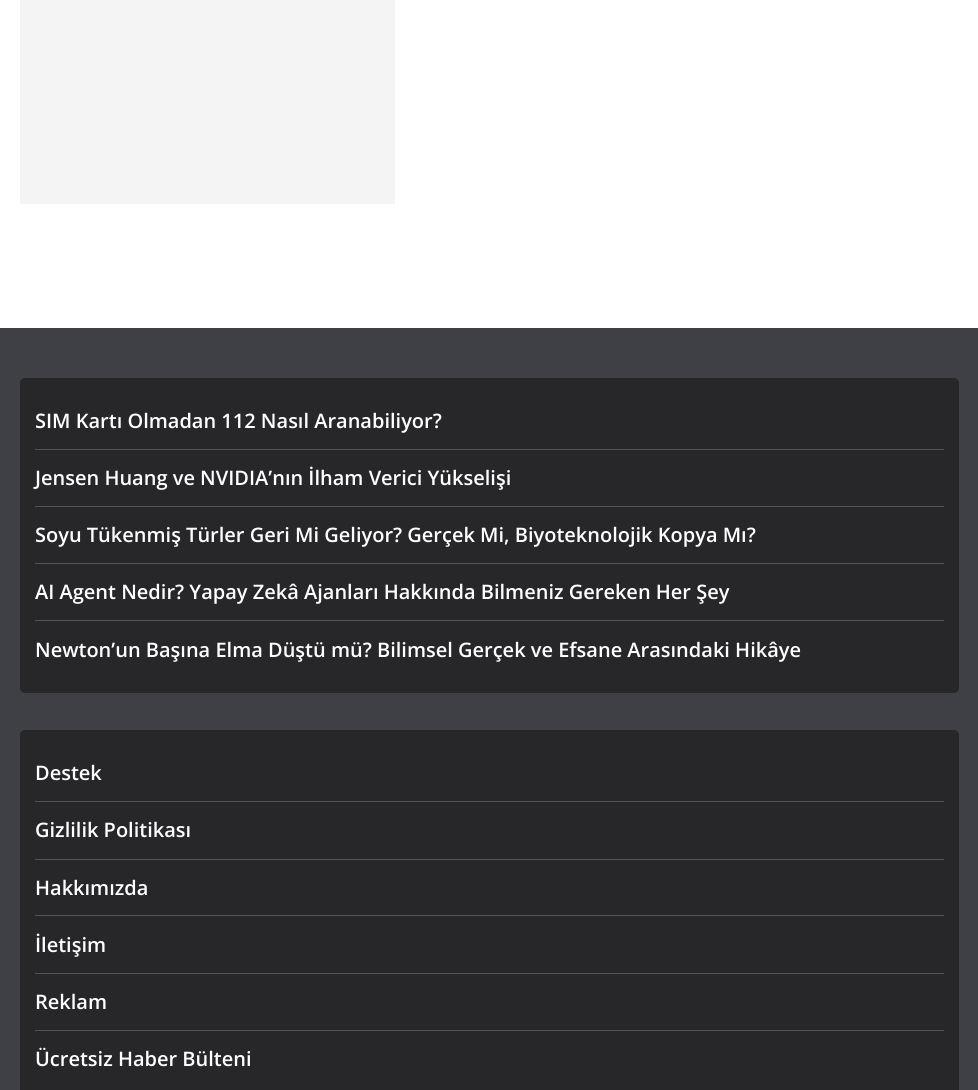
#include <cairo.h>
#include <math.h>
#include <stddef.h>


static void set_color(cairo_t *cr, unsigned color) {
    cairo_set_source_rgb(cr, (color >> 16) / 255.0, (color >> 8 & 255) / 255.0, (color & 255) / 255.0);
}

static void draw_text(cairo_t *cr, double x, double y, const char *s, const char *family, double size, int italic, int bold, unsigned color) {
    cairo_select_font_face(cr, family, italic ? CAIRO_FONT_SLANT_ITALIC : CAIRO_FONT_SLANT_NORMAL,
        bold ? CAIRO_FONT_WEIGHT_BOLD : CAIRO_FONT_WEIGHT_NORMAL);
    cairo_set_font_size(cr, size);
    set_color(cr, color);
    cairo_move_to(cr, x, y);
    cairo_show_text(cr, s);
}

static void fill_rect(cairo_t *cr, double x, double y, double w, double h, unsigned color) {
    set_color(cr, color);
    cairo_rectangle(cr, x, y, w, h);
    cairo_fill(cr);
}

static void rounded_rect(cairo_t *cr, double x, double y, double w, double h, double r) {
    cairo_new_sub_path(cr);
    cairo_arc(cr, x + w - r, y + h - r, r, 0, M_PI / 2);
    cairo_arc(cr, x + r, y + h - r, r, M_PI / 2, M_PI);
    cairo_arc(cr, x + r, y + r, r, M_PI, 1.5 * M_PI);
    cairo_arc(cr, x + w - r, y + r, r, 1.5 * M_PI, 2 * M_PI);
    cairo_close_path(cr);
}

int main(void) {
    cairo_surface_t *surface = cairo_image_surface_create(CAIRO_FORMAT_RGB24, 978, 1090);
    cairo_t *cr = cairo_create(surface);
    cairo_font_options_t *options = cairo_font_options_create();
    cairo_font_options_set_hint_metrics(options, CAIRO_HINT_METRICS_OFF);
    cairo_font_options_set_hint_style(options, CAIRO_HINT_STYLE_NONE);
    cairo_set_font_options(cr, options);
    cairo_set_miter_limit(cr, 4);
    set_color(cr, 0xFFFFFF);
    cairo_paint(cr);
    fill_rect(cr, 20, 0, 375, 204, 0xF4F4F5);
    fill_rect(cr, 0, 328, 978, 762, 0x3F3F46);
    set_color(cr, 0x27272A);
    rounded_rect(cr, 20, 378, 939, 315, 5);
    cairo_fill(cr);
    fill_rect(cr, 35, 449, 909, 1, 0x52525B);
    draw_text(cr, 35, 428, "SIM Kartı Olmadan 112 Nasıl Aranabiliyor?", "Open Sans SemiBold", 20, 0, 0, 0xFFFFFF);
    fill_rect(cr, 35, 506, 909, 1, 0x52525B);
    draw_text(cr, 35, 485, "Jensen Huang ve NVIDIA’nın İlham Verici Yükselişi", "Open Sans SemiBold", 20, 0, 0, 0xFFFFFF);
    fill_rect(cr, 35, 563, 909, 1, 0x52525B);
    draw_text(cr, 35, 542, "Soyu Tükenmiş Türler Geri Mi Geliyor? Gerçek Mi, Biyoteknolojik Kopya Mı?", "Open Sans SemiBold", 20, 0, 0, 0xFFFFFF);
    fill_rect(cr, 35, 620, 909, 1, 0x52525B);
    draw_text(cr, 35, 599, "AI Agent Nedir? Yapay Zekâ Ajanları Hakkında Bilmeniz Gereken Her Şey", "Open Sans SemiBold", 20, 0, 0, 0xFFFFFF);
    draw_text(cr, 35, 657, "Newton’un Başına Elma Düştü mü? Bilimsel Gerçek ve Efsane Arasındaki Hikâye", "Open Sans SemiBold", 20, 0, 0, 0xFFFFFF);
    set_color(cr, 0x27272A);
    rounded_rect(cr, 20, 730, 939, 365, 5);
    cairo_fill(cr);
    fill_rect(cr, 35, 801, 909, 1, 0x52525B);
    draw_text(cr, 35, 780, "Destek", "Open Sans SemiBold", 20, 0, 0, 0xFFFFFF);
    fill_rect(cr, 35, 859, 909, 1, 0x52525B);
    draw_text(cr, 35, 837, "Gizlilik Politikası", "Open Sans SemiBold", 20, 0, 0, 0xFFFFFF);
    fill_rect(cr, 35, 915, 909, 1, 0x52525B);
    draw_text(cr, 35, 895, "Hakkımızda", "Open Sans SemiBold", 20, 0, 0, 0xFFFFFF);
    fill_rect(cr, 35, 973, 909, 1, 0x52525B);
    draw_text(cr, 35, 952, "İletişim", "Open Sans SemiBold", 20, 0, 0, 0xFFFFFF);
    fill_rect(cr, 35, 1030, 909, 1, 0x52525B);
    draw_text(cr, 35, 1009, "Reklam", "Open Sans SemiBold", 20, 0, 0, 0xFFFFFF);
    draw_text(cr, 35, 1066, "Ücretsiz Haber Bülteni", "Open Sans SemiBold", 20, 0, 0, 0xFFFFFF);
    cairo_surface_write_to_png(surface, "output.png");
    cairo_font_options_destroy(options);
    cairo_destroy(cr);
    cairo_surface_destroy(surface);
    return 0;
}
